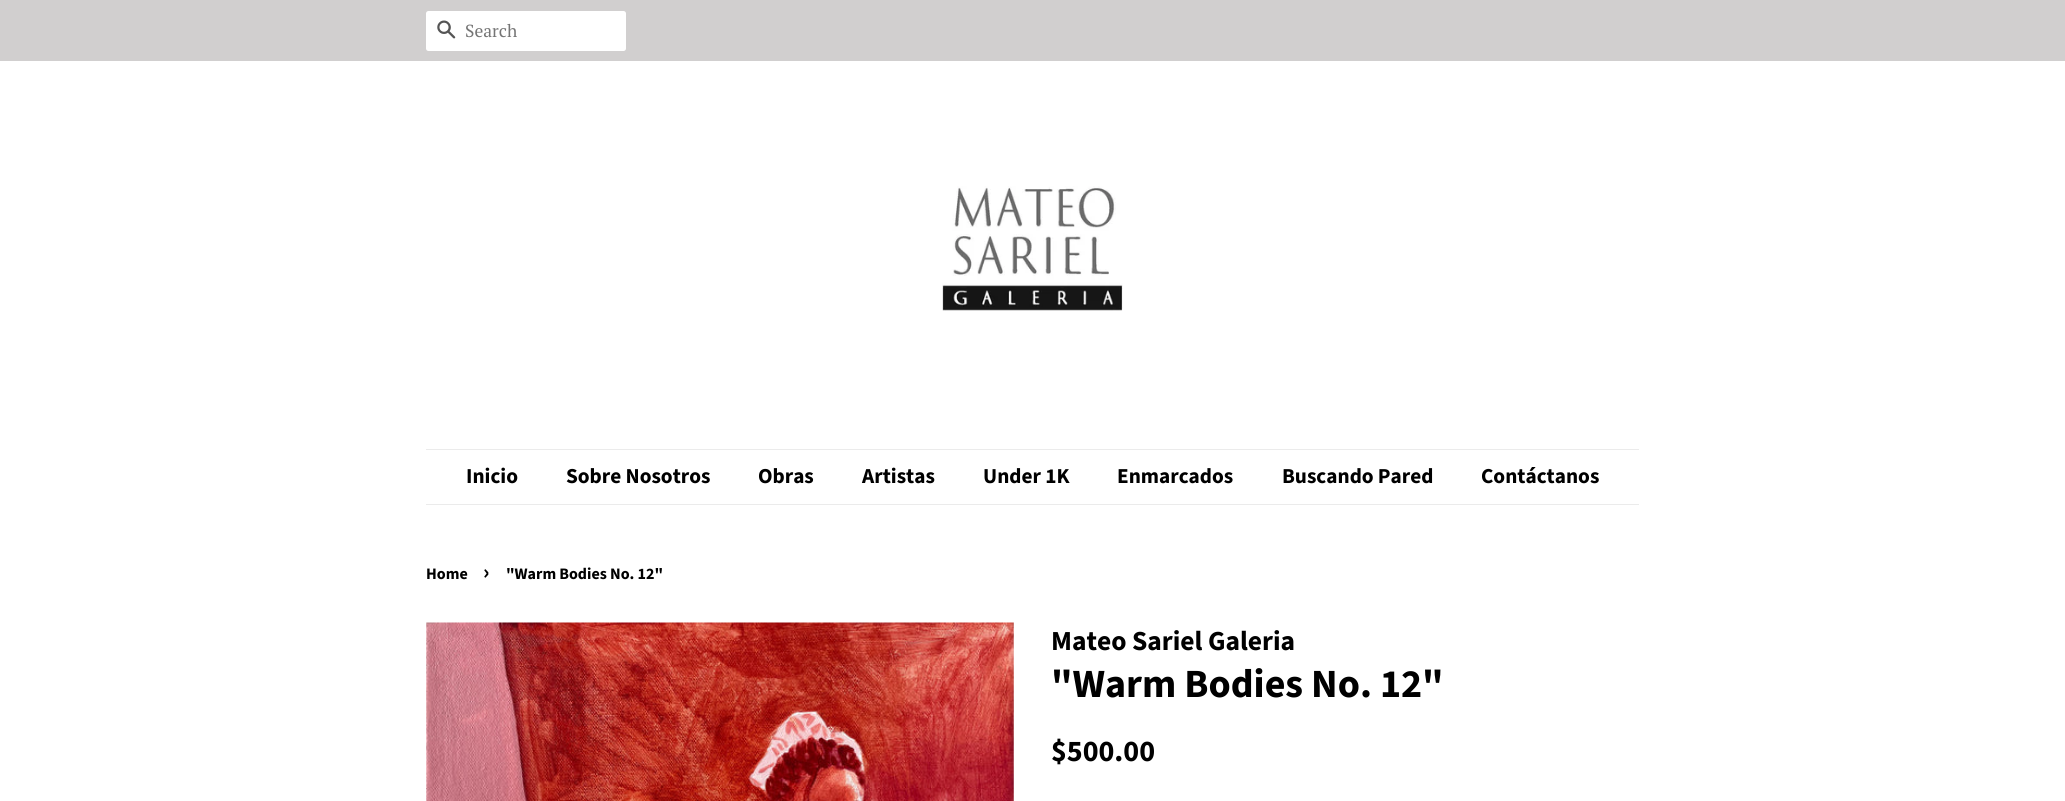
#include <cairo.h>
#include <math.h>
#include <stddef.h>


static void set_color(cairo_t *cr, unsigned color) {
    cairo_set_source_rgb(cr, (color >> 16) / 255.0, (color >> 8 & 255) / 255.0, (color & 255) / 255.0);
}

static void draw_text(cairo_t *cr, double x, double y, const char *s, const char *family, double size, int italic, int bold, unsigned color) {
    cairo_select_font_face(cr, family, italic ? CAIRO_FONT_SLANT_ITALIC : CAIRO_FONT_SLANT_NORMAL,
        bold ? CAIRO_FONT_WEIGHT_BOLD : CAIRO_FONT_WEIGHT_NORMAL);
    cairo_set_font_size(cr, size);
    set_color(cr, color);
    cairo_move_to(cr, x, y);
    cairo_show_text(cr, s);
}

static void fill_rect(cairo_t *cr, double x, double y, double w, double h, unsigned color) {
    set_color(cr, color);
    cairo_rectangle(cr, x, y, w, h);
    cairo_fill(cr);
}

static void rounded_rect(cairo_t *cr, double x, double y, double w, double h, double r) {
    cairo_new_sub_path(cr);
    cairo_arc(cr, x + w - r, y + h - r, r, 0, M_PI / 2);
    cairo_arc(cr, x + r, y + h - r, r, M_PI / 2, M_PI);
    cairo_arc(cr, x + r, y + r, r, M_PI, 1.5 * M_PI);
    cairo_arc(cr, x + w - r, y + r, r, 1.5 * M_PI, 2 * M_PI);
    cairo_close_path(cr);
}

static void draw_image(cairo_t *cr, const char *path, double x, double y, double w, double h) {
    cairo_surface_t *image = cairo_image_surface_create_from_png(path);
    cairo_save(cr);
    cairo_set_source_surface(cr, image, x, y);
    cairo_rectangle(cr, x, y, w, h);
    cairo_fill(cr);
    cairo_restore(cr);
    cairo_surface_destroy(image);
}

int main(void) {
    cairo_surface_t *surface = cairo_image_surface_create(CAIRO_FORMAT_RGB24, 2065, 801);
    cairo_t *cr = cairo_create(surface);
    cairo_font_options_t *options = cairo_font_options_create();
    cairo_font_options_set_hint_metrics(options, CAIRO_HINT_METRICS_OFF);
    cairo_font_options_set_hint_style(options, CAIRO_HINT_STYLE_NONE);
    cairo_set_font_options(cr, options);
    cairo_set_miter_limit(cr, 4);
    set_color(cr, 0xFFFFFF);
    cairo_paint(cr);
    fill_rect(cr, 0, 0, 2065, 61, 0xD1CFCF);
    set_color(cr, 0xFFFFFF);
    rounded_rect(cr, 426, 11, 200, 40, 2.5);
    cairo_fill(cr);
    draw_image(cr, "assets/img1.png", 437, 20, 19, 19);
    draw_text(cr, 465, 37, "Search", "PT Serif", 17.5, 0, 0, 0x757575);
    draw_image(cr, "assets/img2.png", 942, 186, 181, 125);
    fill_rect(cr, 426, 449, 1213, 1, 0xEBEBEB);
    fill_rect(cr, 426, 504, 1213, 1, 0xEBEBEB);
    draw_text(cr, 466, 483, "Inicio", "Source Sans Pro", 21.25, 0, 1, 0x000000);
    draw_text(cr, 566, 483, "Sobre Nosotros", "Source Sans Pro", 21.25, 0, 1, 0x000000);
    draw_text(cr, 758, 483, "Obras", "Source Sans Pro", 21.25, 0, 1, 0x000000);
    draw_text(cr, 862, 483, "Artistas", "Source Sans Pro", 21.25, 0, 1, 0x000000);
    draw_text(cr, 983, 483, "Under 1K", "Source Sans Pro", 21.25, 0, 1, 0x000000);
    draw_text(cr, 1117, 483, "Enmarcados", "Source Sans Pro", 21.25, 0, 1, 0x000000);
    draw_text(cr, 1282, 483, "Buscando Pared", "Source Sans Pro", 21.25, 0, 1, 0x000000);
    draw_text(cr, 1481, 483, "Contáctanos", "Source Sans Pro", 21.25, 0, 1, 0x000000);
    draw_text(cr, 426, 579, "Home", "Source Sans Pro", 16, 0, 1, 0x000000);
    draw_text(cr, 483, 579, "›", "Source Sans Pro", 22, 0, 1, 0x000000);
    draw_text(cr, 506, 579, "\"Warm Bodies No. 12\"", "Source Sans Pro", 16, 0, 1, 0x000000);
    draw_image(cr, "assets/img3.png", 426, 622, 588, 179);
    draw_text(cr, 1051, 650, "Mateo Sariel Galeria", "Source Sans Pro", 27.5, 0, 1, 0x000000);
    draw_text(cr, 1051, 697, "\"Warm Bodies No. 12\"", "Source Sans Pro", 40, 0, 1, 0x000000);
    draw_text(cr, 1051, 761, "$500.00", "Source Sans Pro", 30, 0, 1, 0x000000);
    cairo_surface_write_to_png(surface, "output.png");
    cairo_font_options_destroy(options);
    cairo_destroy(cr);
    cairo_surface_destroy(surface);
    return 0;
}
